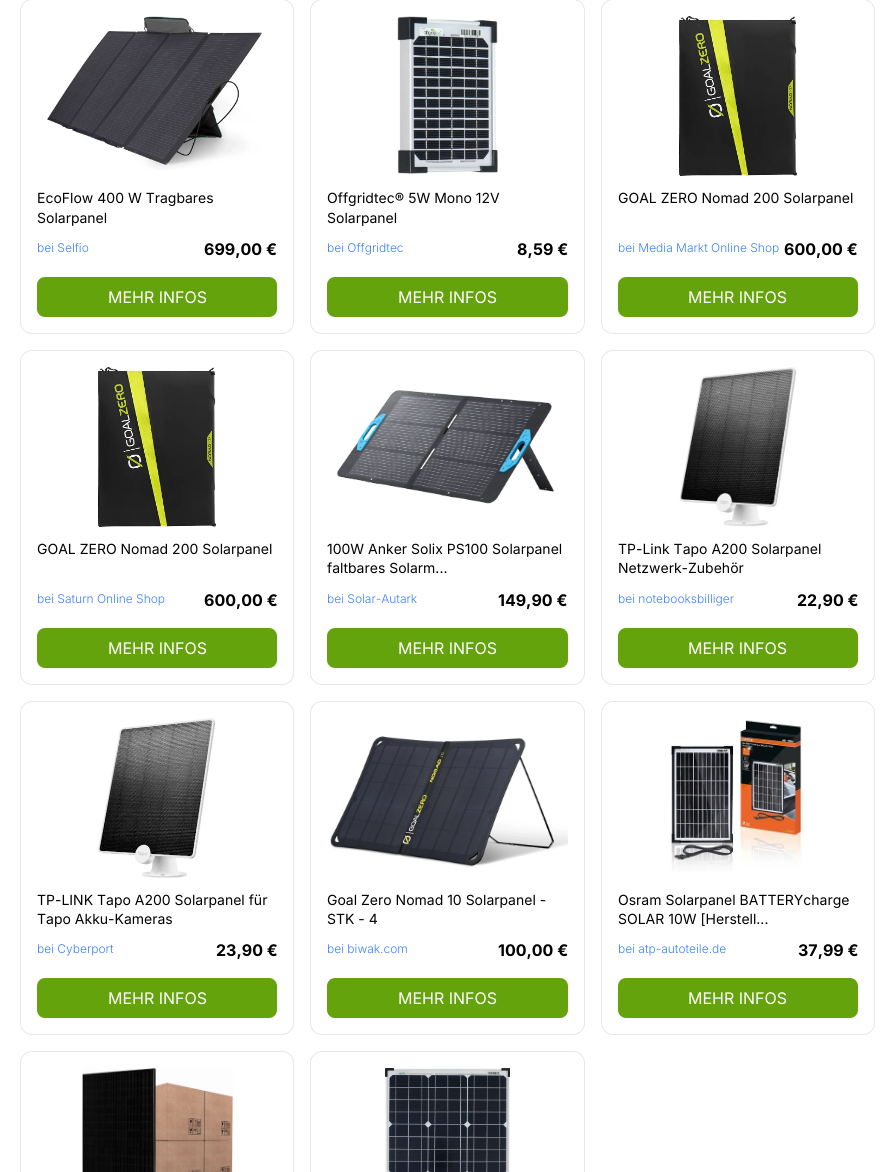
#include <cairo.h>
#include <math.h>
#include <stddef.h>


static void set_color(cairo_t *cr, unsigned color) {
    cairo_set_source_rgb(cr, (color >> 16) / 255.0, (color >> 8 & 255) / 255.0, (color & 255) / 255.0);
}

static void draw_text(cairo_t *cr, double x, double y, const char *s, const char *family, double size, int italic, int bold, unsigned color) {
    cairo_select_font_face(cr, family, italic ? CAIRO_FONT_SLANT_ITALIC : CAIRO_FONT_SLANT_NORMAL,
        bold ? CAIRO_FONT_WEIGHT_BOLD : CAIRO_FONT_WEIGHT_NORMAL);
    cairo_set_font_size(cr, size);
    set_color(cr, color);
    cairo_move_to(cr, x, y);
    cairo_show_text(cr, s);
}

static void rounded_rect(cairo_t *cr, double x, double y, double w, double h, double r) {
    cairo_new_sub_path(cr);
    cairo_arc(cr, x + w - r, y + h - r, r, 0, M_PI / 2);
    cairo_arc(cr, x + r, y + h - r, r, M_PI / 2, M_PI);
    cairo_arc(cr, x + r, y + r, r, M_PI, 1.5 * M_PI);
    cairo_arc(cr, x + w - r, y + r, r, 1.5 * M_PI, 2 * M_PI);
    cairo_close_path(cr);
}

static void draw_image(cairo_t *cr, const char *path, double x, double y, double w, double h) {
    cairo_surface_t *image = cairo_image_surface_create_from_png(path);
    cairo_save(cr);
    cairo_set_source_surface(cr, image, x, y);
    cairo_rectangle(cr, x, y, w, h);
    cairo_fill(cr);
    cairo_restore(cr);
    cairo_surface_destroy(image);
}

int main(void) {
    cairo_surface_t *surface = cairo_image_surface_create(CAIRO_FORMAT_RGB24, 895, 1172);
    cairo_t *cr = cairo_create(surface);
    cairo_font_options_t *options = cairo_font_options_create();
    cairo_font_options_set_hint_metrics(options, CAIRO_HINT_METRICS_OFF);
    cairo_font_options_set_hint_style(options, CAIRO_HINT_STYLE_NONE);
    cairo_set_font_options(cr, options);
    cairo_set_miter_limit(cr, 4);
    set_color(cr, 0xFFFFFF);
    cairo_paint(cr);
    rounded_rect(cr, 20.5, -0.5, 273, 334, 11.5);
    set_color(cr, 0xE5E7EB);
    cairo_set_line_width(cr, 1);
    cairo_stroke(cr);
    draw_image(cr, "assets/img1.png", 47, 16, 215, 154);
    draw_text(cr, 37, 203, "EcoFlow 400 W Tragbares", "Inter", 14, 0, 0, 0x000000);
    draw_text(cr, 37, 223, "Solarpanel", "Inter", 14, 0, 0, 0x000000);
    draw_text(cr, 37, 252, "bei Selfio", "Inter Light", 12, 0, 0, 0x3B82F6);
    draw_text(cr, 204, 255, "699,00 €", "Inter", 16, 0, 1, 0x000000);
    set_color(cr, 0x65A30D);
    rounded_rect(cr, 37, 277, 240, 40, 8);
    cairo_fill(cr);
    draw_text(cr, 108, 303, "MEHR INFOS", "Inter", 16, 0, 0, 0xFFFFFF);
    rounded_rect(cr, 310.5, -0.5, 274, 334, 11.5);
    set_color(cr, 0xE5E7EB);
    cairo_stroke(cr);
    draw_image(cr, "assets/img2.png", 397, 16, 101, 158);
    draw_text(cr, 327, 203, "Offgridtec® 5W Mono 12V", "Inter", 14, 0, 0, 0x000000);
    draw_text(cr, 327, 223, "Solarpanel", "Inter", 14, 0, 0, 0x000000);
    draw_text(cr, 327, 252, "bei Offgridtec", "Inter Light", 12, 0, 0, 0x3B82F6);
    draw_text(cr, 517, 255, "8,59 €", "Inter", 16, 0, 1, 0x000000);
    set_color(cr, 0x65A30D);
    rounded_rect(cr, 327, 277, 241, 40, 8);
    cairo_fill(cr);
    draw_text(cr, 398, 303, "MEHR INFOS", "Inter", 16, 0, 0, 0xFFFFFF);
    rounded_rect(cr, 601.5, -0.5, 273, 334, 11.5);
    set_color(cr, 0xE5E7EB);
    cairo_stroke(cr);
    draw_image(cr, "assets/img3.png", 679, 16, 118, 160);
    draw_text(cr, 618, 203, "GOAL ZERO Nomad 200 Solarpanel", "Inter", 14, 0, 0, 0x000000);
    draw_text(cr, 618, 252, "bei Media Markt Online Shop", "Inter Light", 12, 0, 0, 0x3B82F6);
    draw_text(cr, 784, 255, "600,00 €", "Inter", 16, 0, 1, 0x000000);
    set_color(cr, 0x65A30D);
    rounded_rect(cr, 618, 277, 240, 40, 8);
    cairo_fill(cr);
    draw_text(cr, 688, 303, "MEHR INFOS", "Inter", 16, 0, 0, 0xFFFFFF);
    rounded_rect(cr, 20.5, 350.5, 273, 334, 11.5);
    set_color(cr, 0xE5E7EB);
    cairo_stroke(cr);
    draw_image(cr, "assets/img3.png", 98, 367, 118, 160);
    draw_text(cr, 37, 554, "GOAL ZERO Nomad 200 Solarpanel", "Inter", 14, 0, 0, 0x000000);
    draw_text(cr, 37, 603, "bei Saturn Online Shop", "Inter Light", 12, 0, 0, 0x3B82F6);
    draw_text(cr, 204, 606, "600,00 €", "Inter", 16, 0, 1, 0x000000);
    set_color(cr, 0x65A30D);
    rounded_rect(cr, 37, 628, 240, 40, 8);
    cairo_fill(cr);
    draw_text(cr, 108, 654, "MEHR INFOS", "Inter", 16, 0, 0, 0xFFFFFF);
    rounded_rect(cr, 310.5, 350.5, 274, 334, 11.5);
    set_color(cr, 0xE5E7EB);
    cairo_stroke(cr);
    draw_image(cr, "assets/img4.png", 337, 390, 217, 114);
    draw_text(cr, 327, 554, "100W Anker Solix PS100 Solarpanel", "Inter", 14, 0, 0, 0x000000);
    draw_text(cr, 327, 573, "faltbares Solarm...", "Inter", 14, 0, 0, 0x000000);
    draw_text(cr, 327, 603, "bei Solar-Autark", "Inter Light", 12, 0, 0, 0x3B82F6);
    draw_text(cr, 498, 606, "149,90 €", "Inter", 16, 0, 1, 0x000000);
    set_color(cr, 0x65A30D);
    rounded_rect(cr, 327, 628, 241, 40, 8);
    cairo_fill(cr);
    draw_text(cr, 398, 654, "MEHR INFOS", "Inter", 16, 0, 0, 0xFFFFFF);
    rounded_rect(cr, 601.5, 350.5, 273, 334, 11.5);
    set_color(cr, 0xE5E7EB);
    cairo_stroke(cr);
    draw_image(cr, "assets/img5.png", 679, 367, 118, 160);
    draw_text(cr, 618, 554, "TP-Link Tapo A200 Solarpanel", "Inter", 14, 0, 0, 0x000000);
    draw_text(cr, 618, 573, "Netzwerk-Zubehör", "Inter", 14, 0, 0, 0x000000);
    draw_text(cr, 618, 603, "bei notebooksbilliger", "Inter Light", 12, 0, 0, 0x3B82F6);
    draw_text(cr, 797, 606, "22,90 €", "Inter", 16, 0, 1, 0x000000);
    set_color(cr, 0x65A30D);
    rounded_rect(cr, 618, 628, 240, 40, 8);
    cairo_fill(cr);
    draw_text(cr, 688, 654, "MEHR INFOS", "Inter", 16, 0, 0, 0xFFFFFF);
    rounded_rect(cr, 20.5, 701.5, 273, 333, 11.5);
    set_color(cr, 0xE5E7EB);
    cairo_stroke(cr);
    draw_image(cr, "assets/img6.png", 98, 718, 118, 160);
    draw_text(cr, 37, 905, "TP-LINK Tapo A200 Solarpanel für", "Inter", 14, 0, 0, 0x000000);
    draw_text(cr, 37, 924, "Tapo Akku-Kameras", "Inter", 14, 0, 0, 0x000000);
    draw_text(cr, 37, 953, "bei Cyberport", "Inter Light", 12, 0, 0, 0x3B82F6);
    draw_text(cr, 216, 956, "23,90 €", "Inter", 16, 0, 1, 0x000000);
    set_color(cr, 0x65A30D);
    rounded_rect(cr, 37, 978, 240, 40, 8);
    cairo_fill(cr);
    draw_text(cr, 108, 1004, "MEHR INFOS", "Inter", 16, 0, 0, 0xFFFFFF);
    rounded_rect(cr, 310.5, 701.5, 274, 333, 11.5);
    set_color(cr, 0xE5E7EB);
    cairo_stroke(cr);
    draw_image(cr, "assets/img7.png", 330, 736, 238, 132);
    draw_text(cr, 327, 905, "Goal Zero Nomad 10 Solarpanel -", "Inter", 14, 0, 0, 0x000000);
    draw_text(cr, 327, 924, "STK - 4", "Inter", 14, 0, 0, 0x000000);
    draw_text(cr, 327, 953, "bei biwak.com", "Inter Light", 12, 0, 0, 0x3B82F6);
    draw_text(cr, 498, 956, "100,00 €", "Inter", 16, 0, 1, 0x000000);
    set_color(cr, 0x65A30D);
    rounded_rect(cr, 327, 978, 241, 40, 8);
    cairo_fill(cr);
    draw_text(cr, 398, 1004, "MEHR INFOS", "Inter", 16, 0, 0, 0xFFFFFF);
    rounded_rect(cr, 601.5, 701.5, 273, 333, 11.5);
    set_color(cr, 0xE5E7EB);
    cairo_stroke(cr);
    draw_image(cr, "assets/img8.png", 670, 720, 133, 152);
    draw_text(cr, 618, 905, "Osram Solarpanel BATTERYcharge", "Inter", 14, 0, 0, 0x000000);
    draw_text(cr, 618, 924, "SOLAR 10W [Herstell...", "Inter", 14, 0, 0, 0x000000);
    draw_text(cr, 618, 953, "bei atp-autoteile.de", "Inter Light", 12, 0, 0, 0x3B82F6);
    draw_text(cr, 798, 956, "37,99 €", "Inter", 16, 0, 1, 0x000000);
    set_color(cr, 0x65A30D);
    rounded_rect(cr, 618, 978, 240, 40, 8);
    cairo_fill(cr);
    draw_text(cr, 688, 1004, "MEHR INFOS", "Inter", 16, 0, 0, 0xFFFFFF);
    rounded_rect(cr, 20.5, 1051.5, 273, 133, 11.5);
    set_color(cr, 0xE5E7EB);
    cairo_stroke(cr);
    draw_image(cr, "assets/img9.png", 82, 1068, 151, 104);
    rounded_rect(cr, 310.5, 1051.5, 274, 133, 11.5);
    cairo_stroke(cr);
    draw_image(cr, "assets/img10.png", 385, 1068, 125, 104);
    cairo_surface_write_to_png(surface, "output.png");
    cairo_font_options_destroy(options);
    cairo_destroy(cr);
    cairo_surface_destroy(surface);
    return 0;
}
